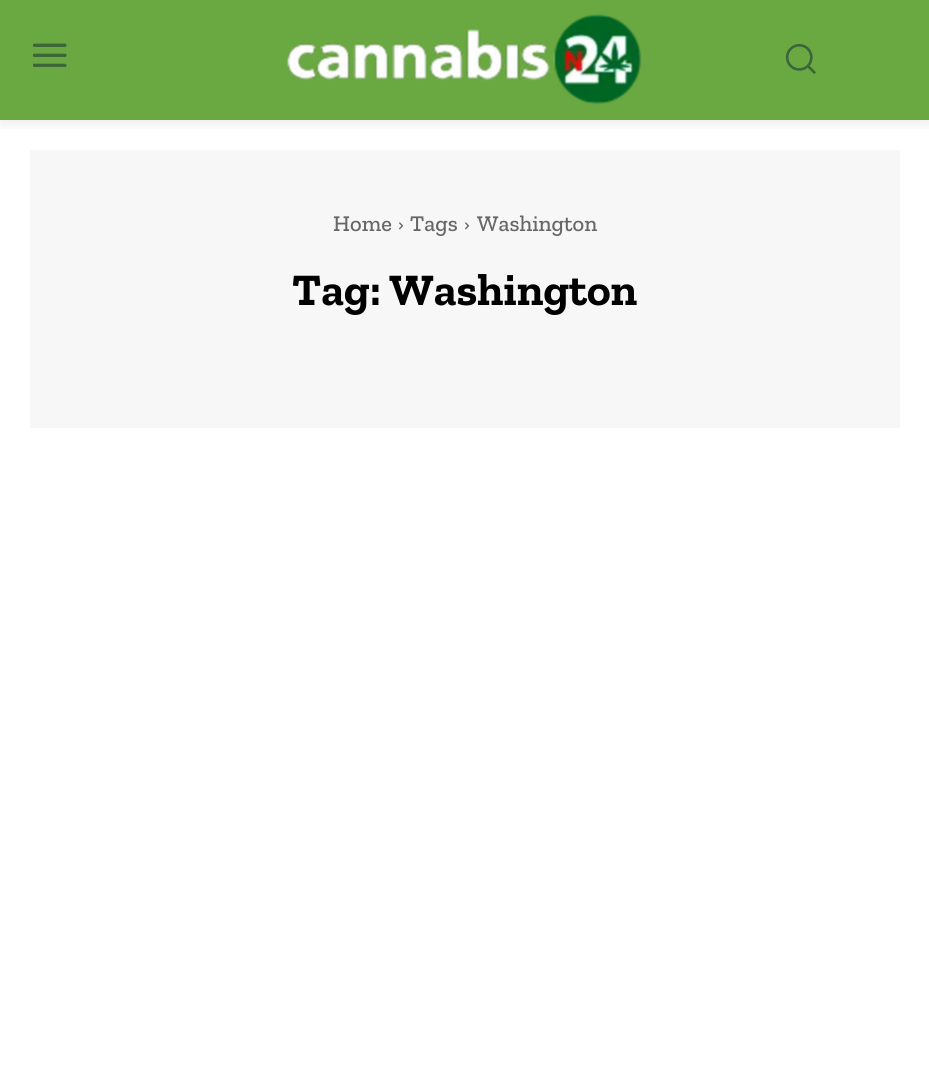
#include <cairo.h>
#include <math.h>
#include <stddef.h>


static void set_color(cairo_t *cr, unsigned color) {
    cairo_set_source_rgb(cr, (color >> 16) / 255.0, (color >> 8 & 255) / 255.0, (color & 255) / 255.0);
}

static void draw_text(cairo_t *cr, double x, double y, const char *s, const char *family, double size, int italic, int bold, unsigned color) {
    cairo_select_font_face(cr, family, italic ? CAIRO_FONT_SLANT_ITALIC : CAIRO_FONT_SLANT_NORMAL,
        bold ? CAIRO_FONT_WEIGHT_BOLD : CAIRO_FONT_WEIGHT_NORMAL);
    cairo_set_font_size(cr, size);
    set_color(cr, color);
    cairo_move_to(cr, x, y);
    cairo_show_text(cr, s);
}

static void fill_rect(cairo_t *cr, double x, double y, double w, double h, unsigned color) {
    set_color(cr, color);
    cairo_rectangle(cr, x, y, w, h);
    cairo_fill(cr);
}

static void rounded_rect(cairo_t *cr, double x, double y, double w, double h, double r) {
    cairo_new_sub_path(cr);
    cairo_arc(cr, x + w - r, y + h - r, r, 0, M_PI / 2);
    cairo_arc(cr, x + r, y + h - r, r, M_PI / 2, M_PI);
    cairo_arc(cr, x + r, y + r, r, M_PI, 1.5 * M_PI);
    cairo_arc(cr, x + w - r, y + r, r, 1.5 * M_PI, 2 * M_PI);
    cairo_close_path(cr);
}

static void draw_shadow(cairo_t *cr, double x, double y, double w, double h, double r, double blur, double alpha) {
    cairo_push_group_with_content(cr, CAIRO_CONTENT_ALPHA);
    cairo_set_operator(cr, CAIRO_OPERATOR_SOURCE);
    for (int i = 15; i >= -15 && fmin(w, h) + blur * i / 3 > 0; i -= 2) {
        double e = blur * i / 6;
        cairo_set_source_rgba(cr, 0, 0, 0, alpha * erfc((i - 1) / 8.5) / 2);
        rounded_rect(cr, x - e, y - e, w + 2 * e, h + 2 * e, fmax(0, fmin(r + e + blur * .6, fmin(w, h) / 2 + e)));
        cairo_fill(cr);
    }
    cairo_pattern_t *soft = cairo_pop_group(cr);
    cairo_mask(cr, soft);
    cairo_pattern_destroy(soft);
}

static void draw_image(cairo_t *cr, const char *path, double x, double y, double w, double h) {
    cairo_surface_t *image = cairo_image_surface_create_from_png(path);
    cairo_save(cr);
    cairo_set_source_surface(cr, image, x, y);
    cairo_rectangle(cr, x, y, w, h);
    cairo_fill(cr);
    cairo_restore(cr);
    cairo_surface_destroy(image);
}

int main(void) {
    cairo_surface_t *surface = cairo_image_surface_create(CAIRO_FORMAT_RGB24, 929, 1076);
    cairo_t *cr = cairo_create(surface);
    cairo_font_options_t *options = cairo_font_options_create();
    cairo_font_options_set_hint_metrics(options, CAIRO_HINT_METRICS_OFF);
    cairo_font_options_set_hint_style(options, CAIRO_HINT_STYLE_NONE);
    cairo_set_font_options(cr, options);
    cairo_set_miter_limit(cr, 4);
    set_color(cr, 0xFFFFFF);
    cairo_paint(cr);
    fill_rect(cr, 0, 0, 929, 120, 0x6AA942);
    draw_image(cr, "assets/img1.png", 33, 43, 34, 24);
    draw_image(cr, "assets/img2.png", 286, 14, 356, 91);
    draw_image(cr, "assets/img3.png", 785, 44, 31, 30);
    cairo_save(cr);
    cairo_rectangle(cr, 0, 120, 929, 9);
    cairo_clip(cr);
    set_color(cr, 0x000000);
    draw_shadow(cr, 0, 3, 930, 120, 0, 7.5, 0.09);
    cairo_restore(cr);
    fill_rect(cr, 30, 150, 870, 278, 0xF7F7F7);
    draw_text(cr, 333, 231, "Home", "Zilla Slab Medium", 22.5, 0, 0, 0x666666);
    draw_image(cr, "assets/img4.png", 399, 222, 4, 8);
    draw_text(cr, 410, 231, "Tags", "Zilla Slab Medium", 22.5, 0, 0, 0x666666);
    draw_image(cr, "assets/img4.png", 465, 222, 4, 8);
    draw_text(cr, 477, 231, "Washington", "Zilla Slab Medium", 22.5, 0, 0, 0x666666);
    draw_text(cr, 292, 305, "Tag: Washington", "Zilla Slab", 45, 0, 1, 0x000000);
    cairo_surface_write_to_png(surface, "output.png");
    cairo_font_options_destroy(options);
    cairo_destroy(cr);
    cairo_surface_destroy(surface);
    return 0;
}
